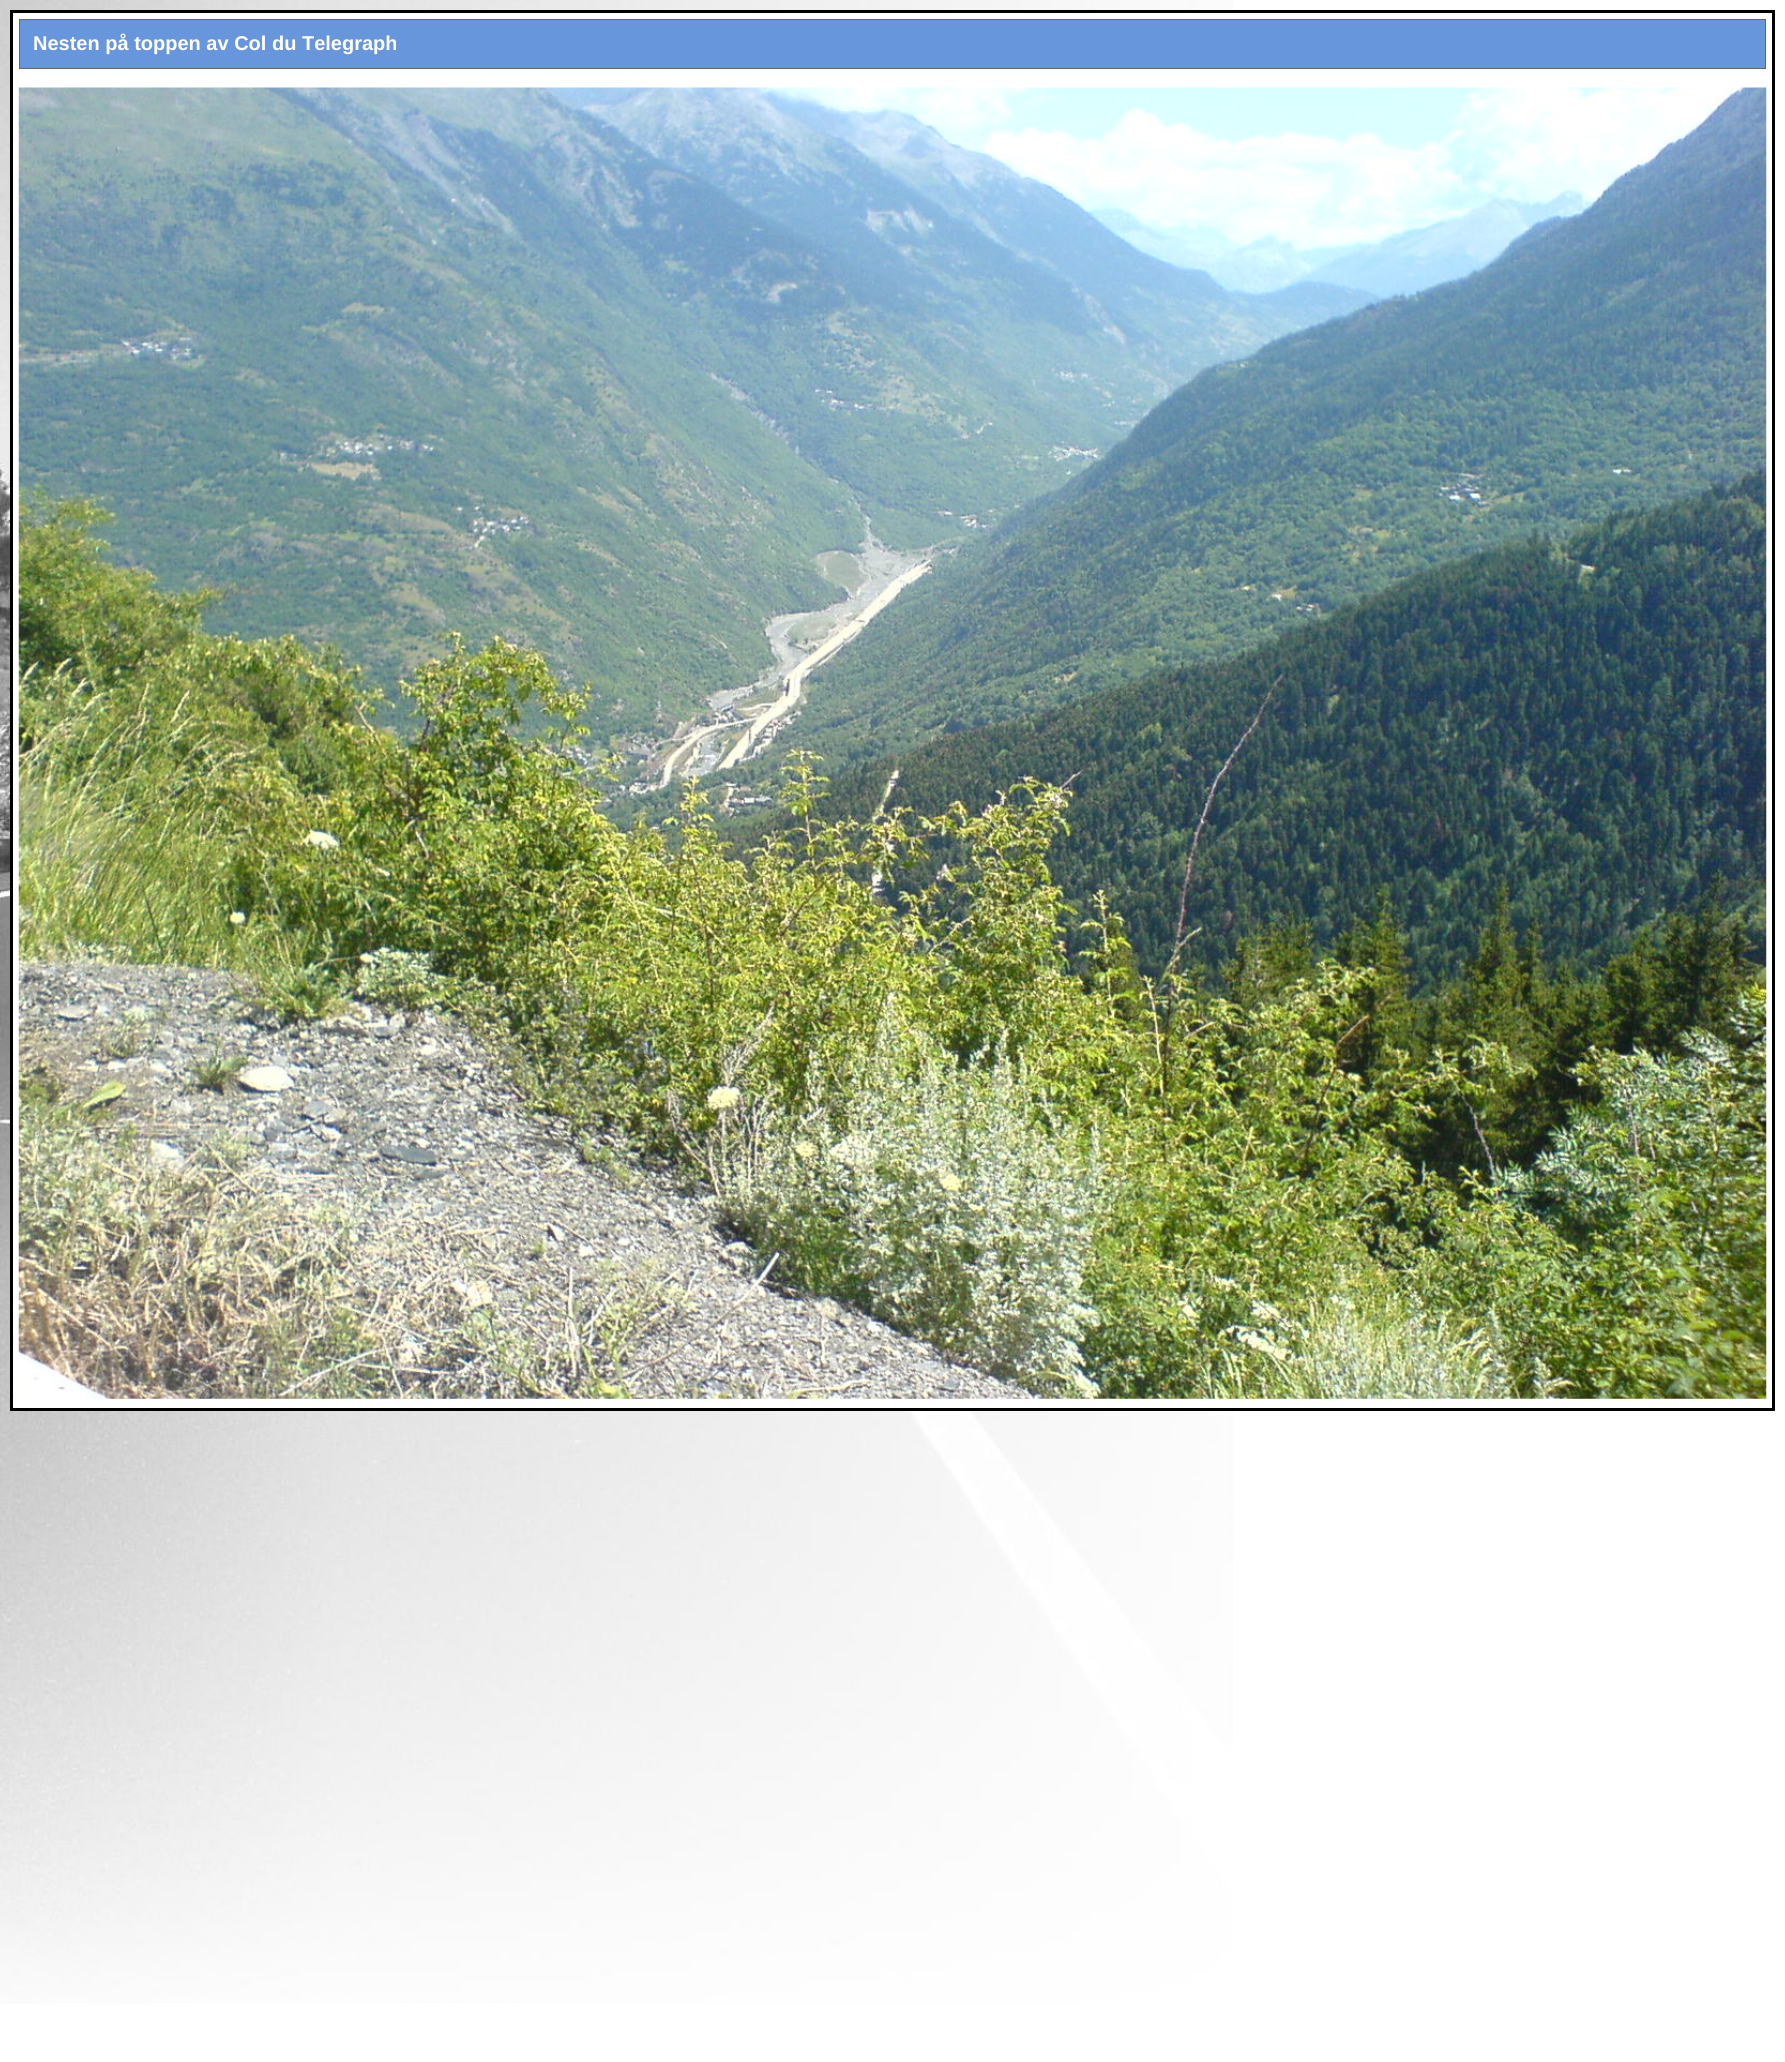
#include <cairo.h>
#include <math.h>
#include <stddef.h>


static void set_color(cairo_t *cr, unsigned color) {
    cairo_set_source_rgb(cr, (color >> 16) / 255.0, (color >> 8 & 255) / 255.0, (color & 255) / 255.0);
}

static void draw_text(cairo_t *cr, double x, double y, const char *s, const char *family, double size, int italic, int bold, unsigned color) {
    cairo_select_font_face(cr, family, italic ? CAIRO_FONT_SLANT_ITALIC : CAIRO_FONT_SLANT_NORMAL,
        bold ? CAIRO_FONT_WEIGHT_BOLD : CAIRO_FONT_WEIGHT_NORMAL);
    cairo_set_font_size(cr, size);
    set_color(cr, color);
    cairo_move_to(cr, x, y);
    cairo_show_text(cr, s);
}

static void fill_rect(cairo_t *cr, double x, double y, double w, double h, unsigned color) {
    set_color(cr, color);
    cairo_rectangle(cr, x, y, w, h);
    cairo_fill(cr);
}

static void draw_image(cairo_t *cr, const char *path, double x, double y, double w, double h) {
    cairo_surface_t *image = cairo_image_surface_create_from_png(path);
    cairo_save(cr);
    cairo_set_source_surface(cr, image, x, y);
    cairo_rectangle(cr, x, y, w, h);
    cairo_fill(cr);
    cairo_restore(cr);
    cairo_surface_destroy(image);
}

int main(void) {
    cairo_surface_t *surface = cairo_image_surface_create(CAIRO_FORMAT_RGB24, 1785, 2062);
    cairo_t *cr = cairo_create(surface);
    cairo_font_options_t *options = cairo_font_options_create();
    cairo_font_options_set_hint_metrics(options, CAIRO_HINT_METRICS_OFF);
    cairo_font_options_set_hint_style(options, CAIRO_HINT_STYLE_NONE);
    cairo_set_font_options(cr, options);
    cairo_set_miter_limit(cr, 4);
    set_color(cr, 0xFFFFFF);
    cairo_paint(cr);
    draw_image(cr, "assets/img1.png", 0, 0, 1234, 2004);
    fill_rect(cr, 13, 13, 1221, 1395, 0xFFFFFF);
    cairo_rectangle(cr, 11.5, 11.5, 1762, 1398);
    set_color(cr, 0x000000);
    cairo_set_line_width(cr, 3);
    cairo_stroke(cr);
    set_color(cr, 0x6796DD);
    cairo_rectangle(cr, 19.5, 19.5, 1746, 49);
    cairo_fill_preserve(cr);
    set_color(cr, 0x666666);
    cairo_set_line_width(cr, 1);
    cairo_stroke(cr);
    draw_text(cr, 33, 50, "Nesten på toppen av Col du Telegraph", "Liberation Sans", 20, 0, 1, 0xFFFFFF);
    draw_image(cr, "assets/img2.png", 18, 87, 1749, 1312);
    cairo_surface_write_to_png(surface, "output.png");
    cairo_font_options_destroy(options);
    cairo_destroy(cr);
    cairo_surface_destroy(surface);
    return 0;
}
